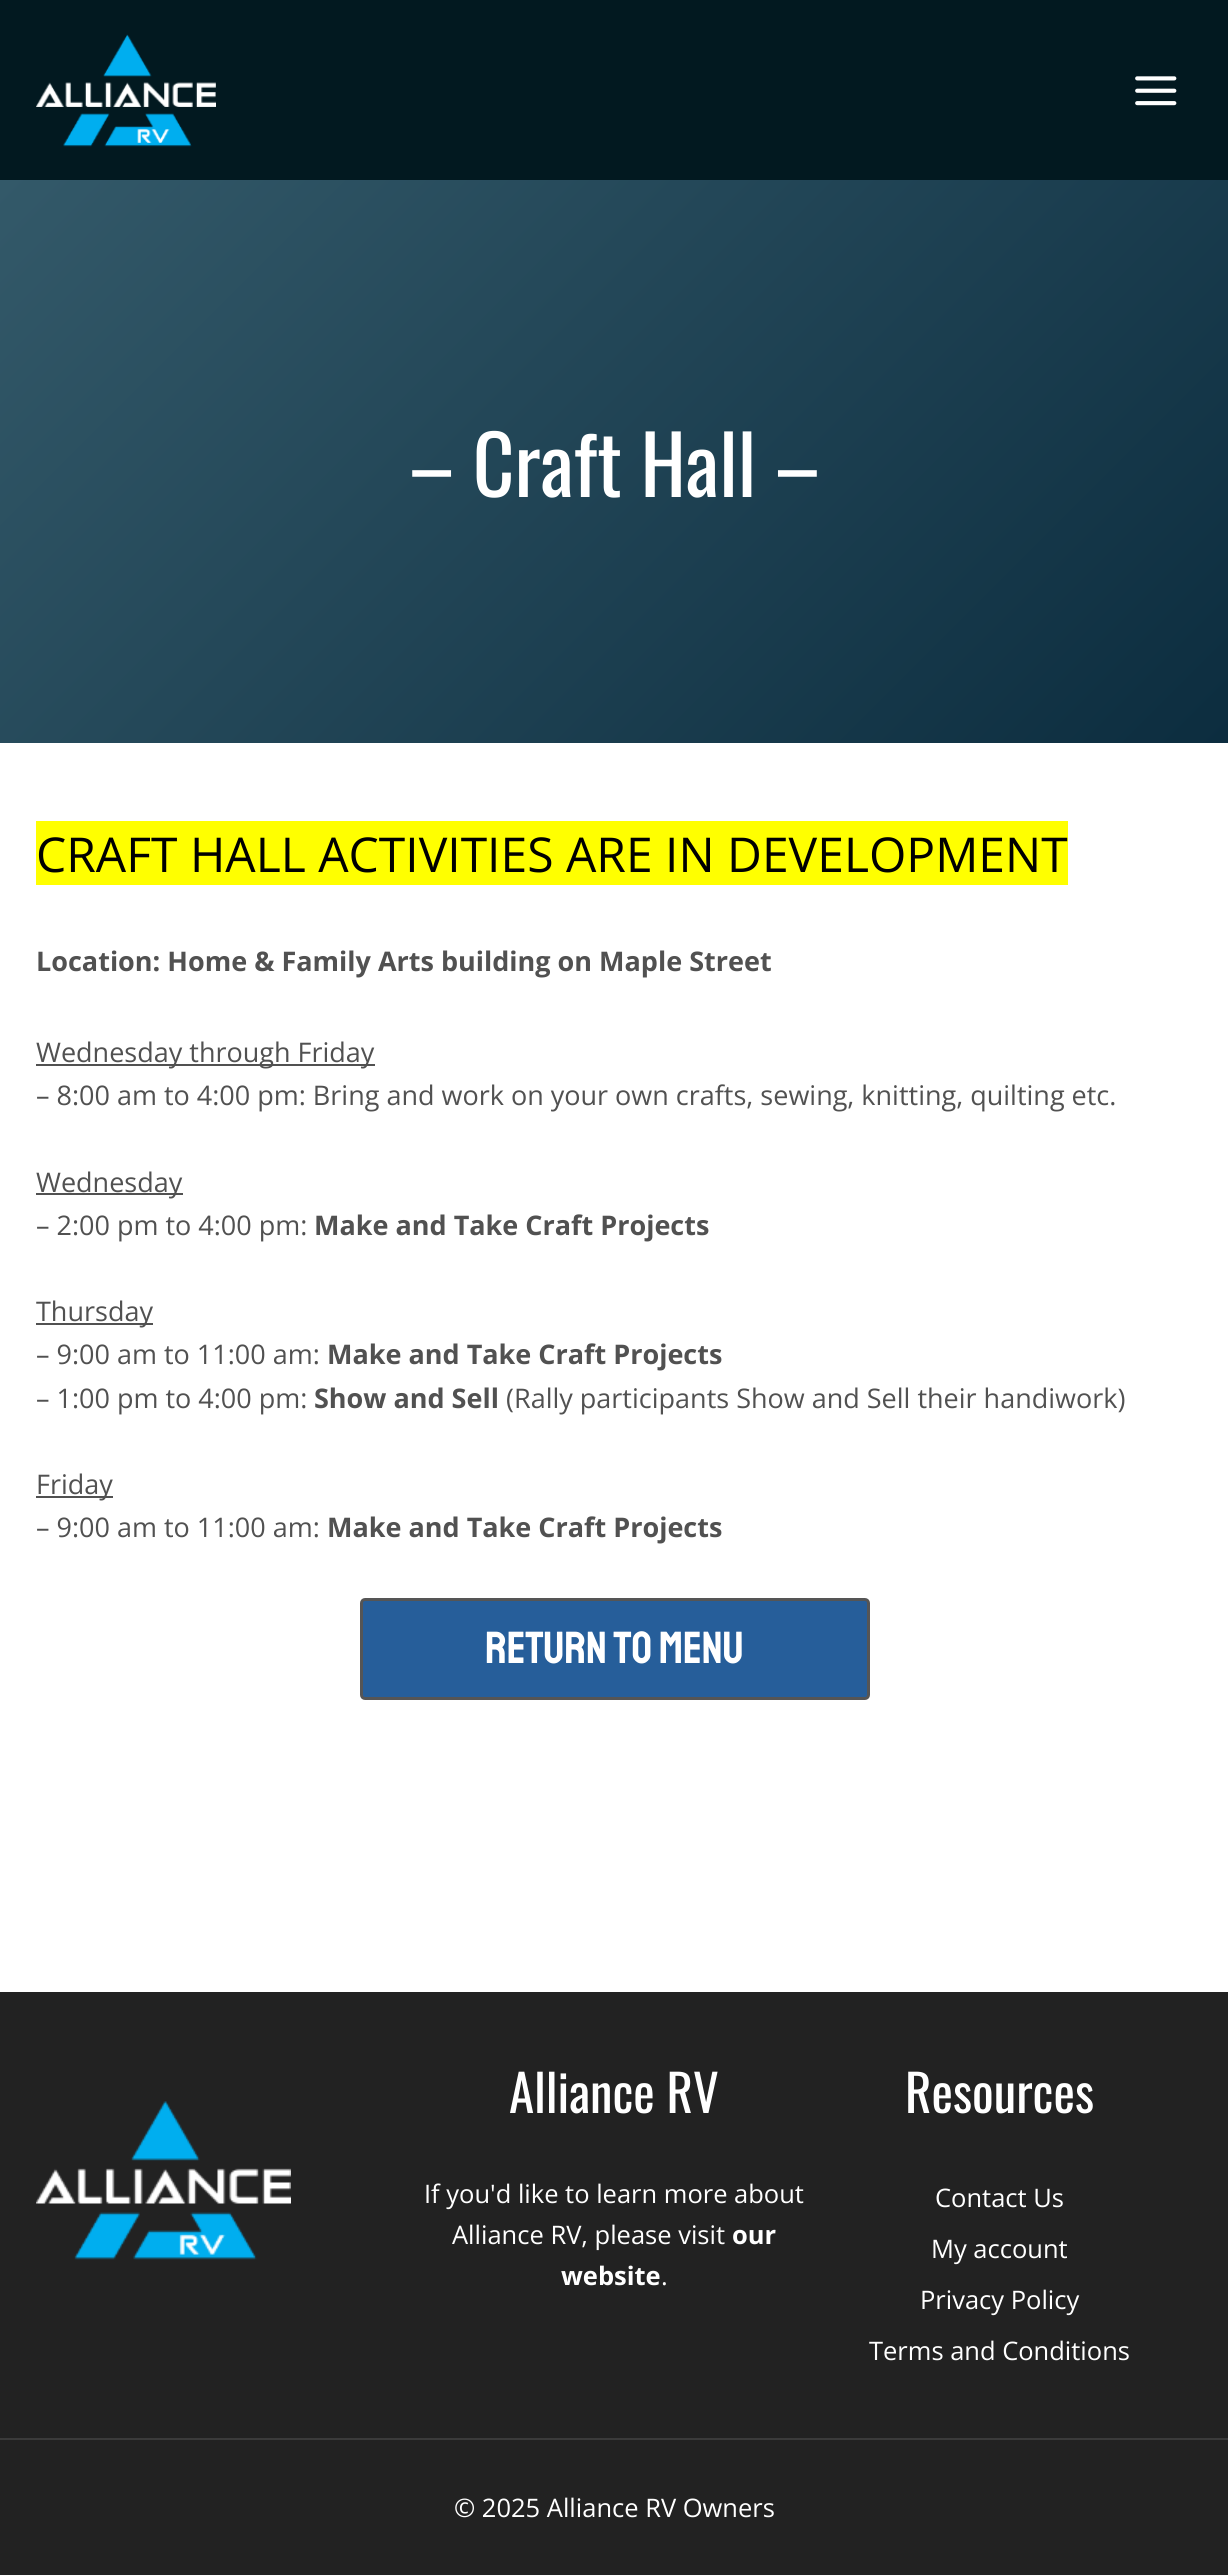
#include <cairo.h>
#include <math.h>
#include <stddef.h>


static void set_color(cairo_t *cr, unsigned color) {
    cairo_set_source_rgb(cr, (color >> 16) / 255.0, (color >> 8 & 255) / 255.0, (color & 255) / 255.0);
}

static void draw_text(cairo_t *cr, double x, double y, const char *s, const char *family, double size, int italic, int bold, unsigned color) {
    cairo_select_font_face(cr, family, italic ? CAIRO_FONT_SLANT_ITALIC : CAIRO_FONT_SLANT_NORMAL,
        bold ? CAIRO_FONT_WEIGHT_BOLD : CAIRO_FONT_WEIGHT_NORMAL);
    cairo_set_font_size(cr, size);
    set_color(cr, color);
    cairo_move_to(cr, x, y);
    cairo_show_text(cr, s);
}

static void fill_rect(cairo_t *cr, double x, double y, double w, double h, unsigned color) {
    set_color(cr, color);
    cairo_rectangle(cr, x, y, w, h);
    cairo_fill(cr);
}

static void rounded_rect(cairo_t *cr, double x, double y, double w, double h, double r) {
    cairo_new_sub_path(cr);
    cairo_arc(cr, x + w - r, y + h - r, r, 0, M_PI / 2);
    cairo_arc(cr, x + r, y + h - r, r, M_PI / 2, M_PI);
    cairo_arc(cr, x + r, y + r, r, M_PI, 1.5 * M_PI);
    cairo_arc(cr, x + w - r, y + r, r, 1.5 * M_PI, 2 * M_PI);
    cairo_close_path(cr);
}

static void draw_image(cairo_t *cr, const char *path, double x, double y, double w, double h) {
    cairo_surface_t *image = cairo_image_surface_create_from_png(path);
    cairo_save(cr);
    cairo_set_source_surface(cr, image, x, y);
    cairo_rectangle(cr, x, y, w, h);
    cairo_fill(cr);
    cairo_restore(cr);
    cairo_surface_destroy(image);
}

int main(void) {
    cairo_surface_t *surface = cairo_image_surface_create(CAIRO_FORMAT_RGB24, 1228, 2575);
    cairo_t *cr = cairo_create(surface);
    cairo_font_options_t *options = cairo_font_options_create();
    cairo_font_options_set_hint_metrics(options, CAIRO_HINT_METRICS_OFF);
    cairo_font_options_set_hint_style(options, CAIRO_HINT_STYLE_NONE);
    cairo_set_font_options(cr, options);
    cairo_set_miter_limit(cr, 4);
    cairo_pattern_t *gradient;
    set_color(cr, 0xFFFFFF);
    cairo_paint(cr);
    fill_rect(cr, 0, 0, 1228, 180, 0x021920);
    draw_image(cr, "assets/img1.png", 36, 34, 180, 113);
    draw_image(cr, "assets/img2.png", 1135, 76, 42, 30);
    gradient = cairo_pattern_create_linear(167, 14, 1062, 909);
    cairo_pattern_add_color_stop_rgba(gradient, 0, 0.2, 0.349, 0.412, 1);
    cairo_pattern_add_color_stop_rgba(gradient, 1, 0.047, 0.176, 0.247, 1);
    cairo_set_source(cr, gradient);
    cairo_pattern_destroy(gradient);
    cairo_rectangle(cr, 0, 180, 1228, 563);
    cairo_fill(cr);
    draw_text(cr, 409, 497, "– Craft Hall –", "Oswald", 81, 0, 0, 0xFFFFFF);
    fill_rect(cr, 36, 821, 1032, 64, 0xFFFF00);
    draw_text(cr, 36, 872, "CRAFT HALL ACTIVITIES ARE IN DEVELOPMENT", "Open Sans", 48, 0, 0, 0x000000);
    draw_text(cr, 36, 971, "Location: Home & Family Arts building on Maple Street", "Open Sans", 27, 0, 1, 0x515151);
    fill_rect(cr, 36, 1064, 339, 2, 0x515151);
    draw_text(cr, 36, 1062, "Wednesday through Friday", "Open Sans", 27, 0, 0, 0x515151);
    draw_text(cr, 36, 1105, "– 8:00 am to 4:00 pm: Bring and work on your own crafts, sewing, knitting, quilting etc.", "Open Sans", 27, 0, 0, 0x515151);
    fill_rect(cr, 36, 1193, 147, 2, 0x515151);
    draw_text(cr, 36, 1192, "Wednesday", "Open Sans", 27, 0, 0, 0x515151);
    draw_text(cr, 36, 1235, "– 2:00 pm to 4:00 pm:", "Open Sans", 27, 0, 0, 0x515151);
    draw_text(cr, 314, 1235, "Make and Take Craft Projects", "Open Sans", 27, 0, 1, 0x515151);
    fill_rect(cr, 36, 1323, 117, 2, 0x515151);
    draw_text(cr, 36, 1321, "Thursday", "Open Sans", 27, 0, 0, 0x515151);
    draw_text(cr, 36, 1364, "– 9:00 am to 11:00 am:", "Open Sans", 27, 0, 0, 0x515151);
    draw_text(cr, 327, 1364, "Make and Take Craft Projects", "Open Sans", 27, 0, 1, 0x515151);
    draw_text(cr, 36, 1408, "– 1:00 pm to 4:00 pm:", "Open Sans", 27, 0, 0, 0x515151);
    draw_text(cr, 314, 1408, "Show and Sell", "Open Sans", 27, 0, 1, 0x515151);
    draw_text(cr, 506, 1408, "(Rally participants Show and Sell their handiwork)", "Open Sans", 27, 0, 0, 0x515151);
    fill_rect(cr, 36, 1496, 77, 2, 0x515151);
    draw_text(cr, 36, 1494, "Friday", "Open Sans", 27, 0, 0, 0x515151);
    draw_text(cr, 36, 1537, "– 9:00 am to 11:00 am:", "Open Sans", 27, 0, 0, 0x515151);
    draw_text(cr, 327, 1537, "Make and Take Craft Projects", "Open Sans", 27, 0, 1, 0x515151);
    set_color(cr, 0x265E9A);
    rounded_rect(cr, 361.5, 1599.5, 507, 99, 3.5);
    cairo_fill_preserve(cr);
    set_color(cr, 0x555555);
    cairo_set_line_width(cr, 3);
    cairo_stroke(cr);
    draw_text(cr, 485, 1663, "RETURN TO MENU", "Staatliches", 45, 0, 0, 0xFFFFFF);
    fill_rect(cr, 0, 1992, 1228, 583, 0x222222);
    draw_image(cr, "assets/img3.png", 36, 2101, 255, 159);
    draw_text(cr, 509, 2113, "Alliance RV", "Oswald", 51, 0, 0, 0xFFFFFF);
    draw_text(cr, 424, 2203, "If you'd like to learn more about", "Open Sans", 25.5, 0, 0, 0xFFFFFF);
    draw_text(cr, 452, 2244, "Alliance RV, please visit", "Open Sans", 25.5, 0, 0, 0xFFFFFF);
    draw_text(cr, 732, 2244, "our", "Open Sans", 25.5, 0, 1, 0xFFFFFF);
    draw_text(cr, 561, 2285, "website", "Open Sans", 25.5, 0, 1, 0xFFFFFF);
    draw_text(cr, 661, 2285, ".", "Open Sans", 25.5, 0, 0, 0xFFFFFF);
    draw_text(cr, 905, 2113, "Resources", "Oswald", 51, 0, 0, 0xFFFFFF);
    draw_text(cr, 935, 2207, "Contact Us", "Open Sans", 25.5, 0, 0, 0xFFFFFF);
    draw_text(cr, 931, 2258, "My account", "Open Sans", 25.5, 0, 0, 0xFFFFFF);
    draw_text(cr, 920, 2309, "Privacy Policy", "Open Sans", 25.5, 0, 0, 0xFFFFFF);
    draw_text(cr, 869, 2360, "Terms and Conditions", "Open Sans", 25.5, 0, 0, 0xFFFFFF);
    fill_rect(cr, 0, 2438, 1228, 2, 0x3B3B3B);
    draw_text(cr, 454, 2517, "© 2025 Alliance RV Owners", "Open Sans", 25.5, 0, 0, 0xFFFFFF);
    cairo_surface_write_to_png(surface, "output.png");
    cairo_font_options_destroy(options);
    cairo_destroy(cr);
    cairo_surface_destroy(surface);
    return 0;
}
